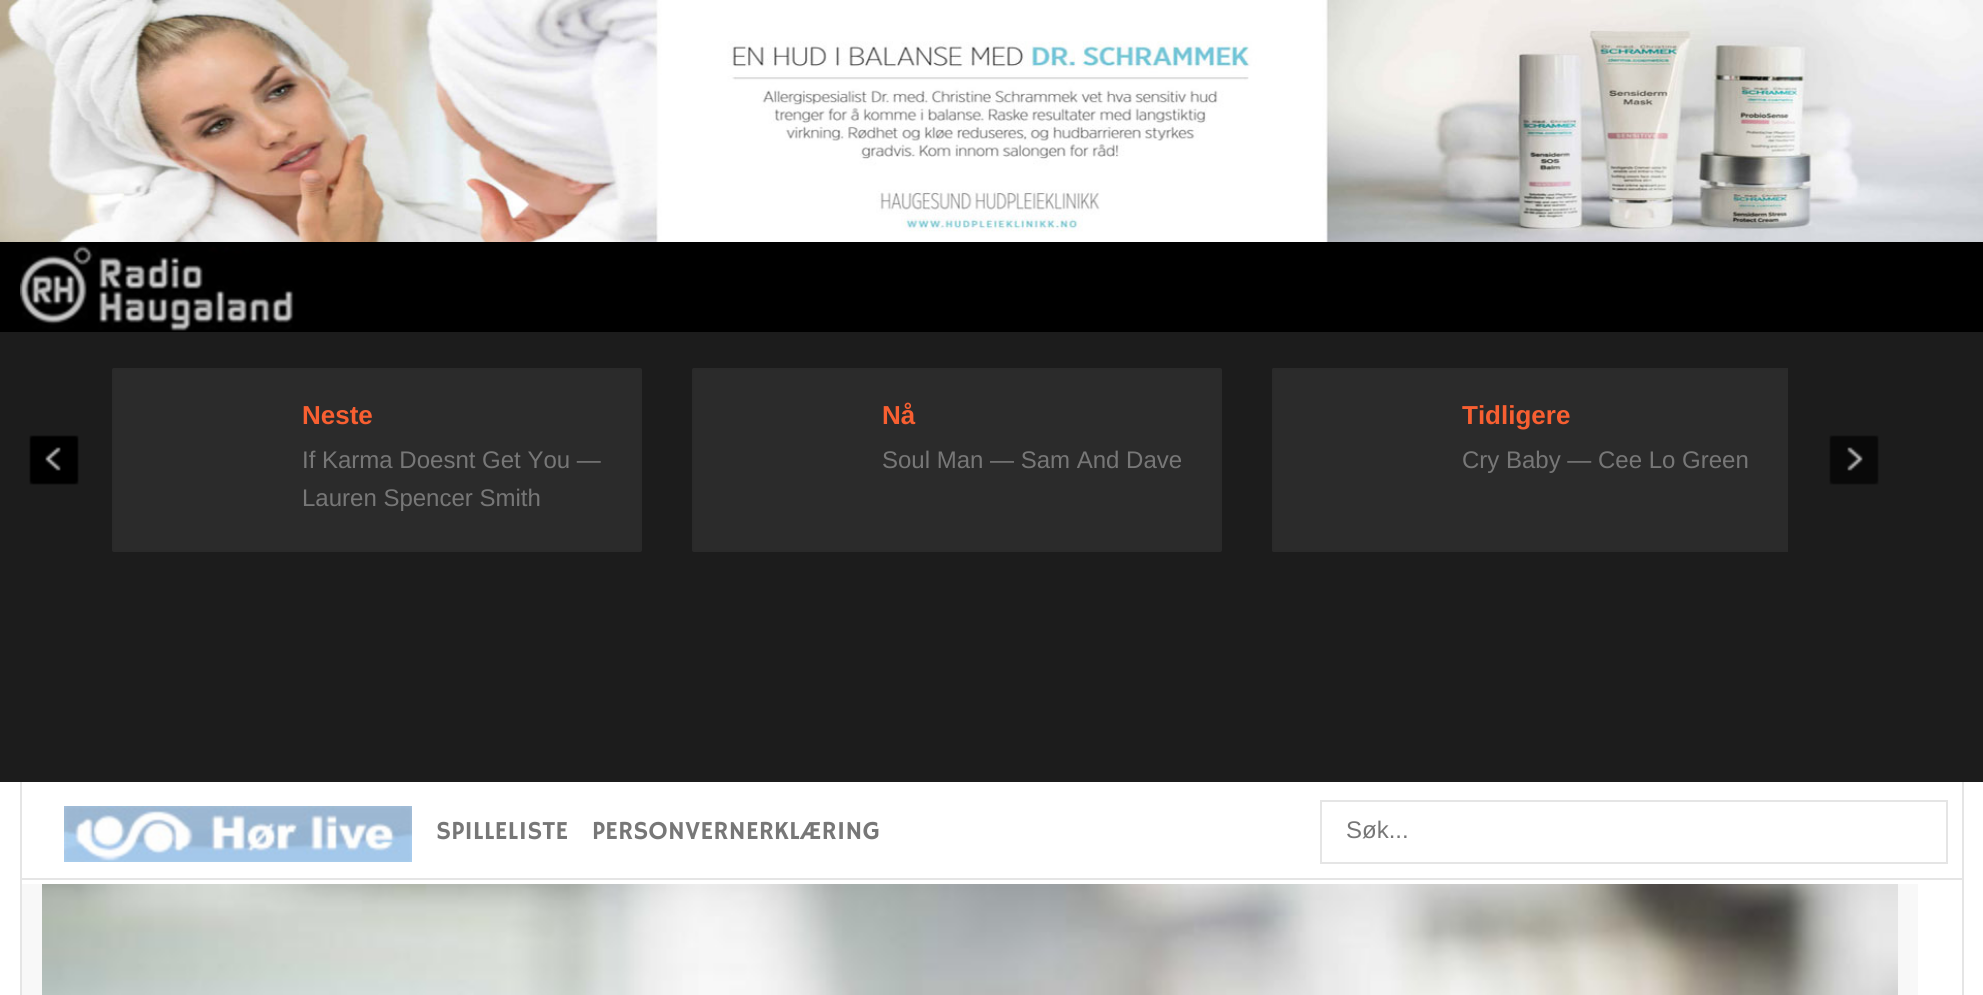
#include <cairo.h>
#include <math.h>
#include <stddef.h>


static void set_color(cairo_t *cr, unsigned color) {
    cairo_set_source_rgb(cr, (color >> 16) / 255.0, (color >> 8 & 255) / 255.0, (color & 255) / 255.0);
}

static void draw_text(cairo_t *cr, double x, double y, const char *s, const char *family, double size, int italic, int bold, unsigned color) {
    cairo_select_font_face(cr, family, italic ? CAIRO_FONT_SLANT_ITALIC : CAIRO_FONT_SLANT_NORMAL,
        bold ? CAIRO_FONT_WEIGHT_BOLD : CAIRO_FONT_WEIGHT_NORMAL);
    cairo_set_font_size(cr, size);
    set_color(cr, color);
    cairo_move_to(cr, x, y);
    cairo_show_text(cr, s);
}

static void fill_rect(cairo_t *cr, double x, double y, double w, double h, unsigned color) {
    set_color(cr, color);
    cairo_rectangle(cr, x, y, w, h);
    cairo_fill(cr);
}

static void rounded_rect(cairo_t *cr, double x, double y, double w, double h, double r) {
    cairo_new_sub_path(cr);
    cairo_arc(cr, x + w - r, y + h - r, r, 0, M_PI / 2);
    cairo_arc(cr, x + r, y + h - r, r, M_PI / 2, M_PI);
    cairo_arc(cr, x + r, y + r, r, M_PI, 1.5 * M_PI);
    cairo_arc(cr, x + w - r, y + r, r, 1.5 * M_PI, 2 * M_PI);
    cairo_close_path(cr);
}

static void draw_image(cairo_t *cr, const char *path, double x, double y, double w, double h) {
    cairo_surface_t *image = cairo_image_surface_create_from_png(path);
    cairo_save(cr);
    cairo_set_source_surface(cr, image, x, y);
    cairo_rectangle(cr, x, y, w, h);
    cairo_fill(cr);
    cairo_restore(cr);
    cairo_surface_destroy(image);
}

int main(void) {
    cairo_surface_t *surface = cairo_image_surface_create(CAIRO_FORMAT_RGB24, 1983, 995);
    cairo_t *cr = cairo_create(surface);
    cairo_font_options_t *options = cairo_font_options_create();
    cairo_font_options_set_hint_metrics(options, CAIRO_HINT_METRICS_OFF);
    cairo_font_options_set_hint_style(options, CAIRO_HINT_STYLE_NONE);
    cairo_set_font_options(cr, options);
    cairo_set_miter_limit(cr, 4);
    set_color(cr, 0xFFFFFF);
    cairo_paint(cr);
    draw_image(cr, "assets/img1.png", 0, 0, 1983, 242);
    fill_rect(cr, 0, 242, 1983, 90, 0x000000);
    draw_image(cr, "assets/img2.png", 20, 245, 274, 86);
    fill_rect(cr, 0, 332, 1983, 450, 0x1C1C1C);
    draw_image(cr, "assets/img3.png", 29, 435, 50, 50);
    set_color(cr, 0x2B2B2B);
    rounded_rect(cr, 113, 369, 528, 182, 1);
    cairo_fill_preserve(cr);
    set_color(cr, 0x2A2A2A);
    cairo_stroke(cr);
    draw_text(cr, 302, 424, "Neste", "Liberation Sans", 26, 0, 1, 0xF85F31);
    draw_text(cr, 302, 468, "If Karma Doesnt Get You —", "Liberation Sans", 24, 0, 0, 0x777777);
    draw_text(cr, 302, 506, "Lauren Spencer Smith", "Liberation Sans", 24, 0, 0, 0x777777);
    set_color(cr, 0x2B2B2B);
    rounded_rect(cr, 693, 369, 528, 182, 1);
    cairo_fill_preserve(cr);
    set_color(cr, 0x2A2A2A);
    cairo_stroke(cr);
    draw_text(cr, 882, 424, "Nå", "Liberation Sans", 26, 0, 1, 0xF85F31);
    draw_text(cr, 882, 468, "Soul Man — Sam And Dave", "Liberation Sans", 24, 0, 0, 0x777777);
    set_color(cr, 0x2B2B2B);
    cairo_new_path(cr);
    cairo_move_to(cr, 1274, 368);
    cairo_line_to(cr, 1788, 368);
    cairo_line_to(cr, 1788, 552);
    cairo_line_to(cr, 1274, 552);
    cairo_curve_to(cr, 1273, 552, 1272, 551, 1272, 550);
    cairo_line_to(cr, 1272, 370);
    cairo_curve_to(cr, 1272, 369, 1273, 368, 1274, 368);
    cairo_close_path(cr);
    cairo_fill(cr);
    cairo_save(cr);
    cairo_rectangle(cr, 112, 368, 1676, 184);
    cairo_clip(cr);
    rounded_rect(cr, 1273, 369, 528, 182, 1);
    set_color(cr, 0x2A2A2A);
    cairo_stroke(cr);
    cairo_restore(cr);
    draw_text(cr, 1462, 424, "Tidligere", "Liberation Sans", 26, 0, 1, 0xF85F31);
    draw_text(cr, 1462, 468, "Cry Baby — Cee Lo Green", "Liberation Sans", 24, 0, 0, 0x777777);
    draw_image(cr, "assets/img4.png", 1829, 435, 50, 50);
    fill_rect(cr, 1962, 782, 2, 213, 0xE5E5E5);
    fill_rect(cr, 20, 878, 1944, 2, 0xE5E5E5);
    fill_rect(cr, 20, 782, 2, 213, 0xE5E5E5);
    draw_image(cr, "assets/img5.png", 64, 806, 348, 56);
    draw_text(cr, 436, 839, "SPILLELISTE", "Hammersmith One", 26, 0, 0, 0x777777);
    draw_text(cr, 592, 839, "PERSONVERNERKLÆRING", "Hammersmith One", 26, 0, 0, 0x777777);
    cairo_rectangle(cr, 1321, 801, 626, 62);
    set_color(cr, 0xE5E5E5);
    cairo_stroke(cr);
    draw_text(cr, 1346, 838, "Søk...", "Liberation Sans", 24, 0, 0, 0x777777);
    fill_rect(cr, 22, 884, 1896, 111, 0xF8F8F8);
    draw_image(cr, "assets/img6.png", 42, 884, 1856, 111);
    cairo_surface_write_to_png(surface, "output.png");
    cairo_font_options_destroy(options);
    cairo_destroy(cr);
    cairo_surface_destroy(surface);
    return 0;
}
